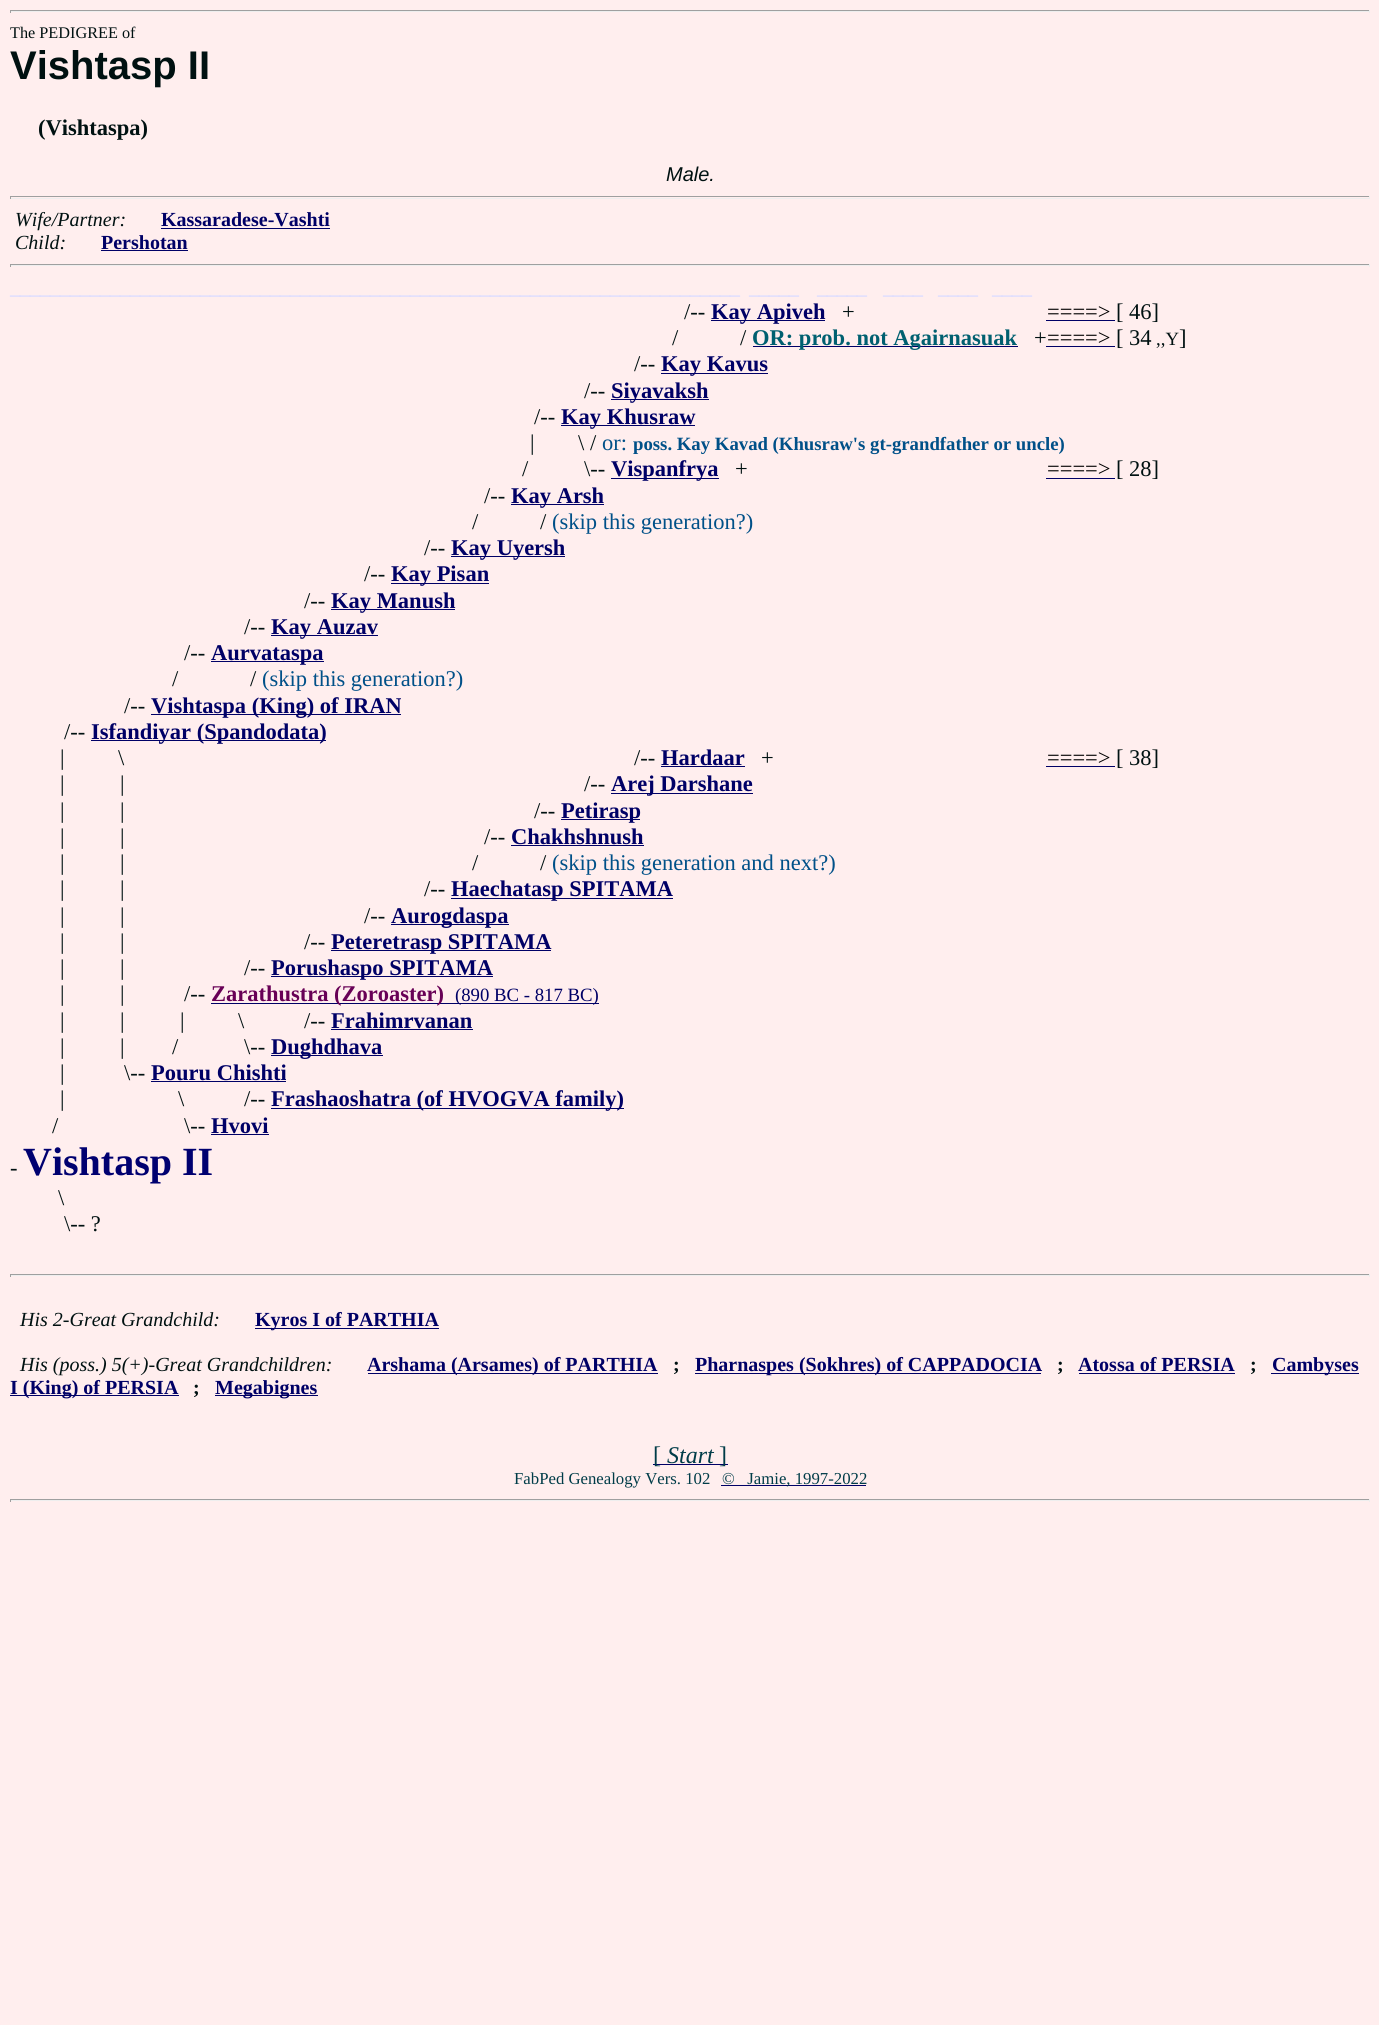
#include <cairo.h>
#include <math.h>
#include <stddef.h>


static void set_color(cairo_t *cr, unsigned color) {
    cairo_set_source_rgb(cr, (color >> 16) / 255.0, (color >> 8 & 255) / 255.0, (color & 255) / 255.0);
}

static void draw_text(cairo_t *cr, double x, double y, const char *s, const char *family, double size, int italic, int bold, unsigned color) {
    cairo_select_font_face(cr, family, italic ? CAIRO_FONT_SLANT_ITALIC : CAIRO_FONT_SLANT_NORMAL,
        bold ? CAIRO_FONT_WEIGHT_BOLD : CAIRO_FONT_WEIGHT_NORMAL);
    cairo_set_font_size(cr, size);
    set_color(cr, color);
    cairo_move_to(cr, x, y);
    cairo_show_text(cr, s);
}

static void fill_rect(cairo_t *cr, double x, double y, double w, double h, unsigned color) {
    set_color(cr, color);
    cairo_rectangle(cr, x, y, w, h);
    cairo_fill(cr);
}

int main(void) {
    cairo_surface_t *surface = cairo_image_surface_create(CAIRO_FORMAT_RGB24, 1379, 2025);
    cairo_t *cr = cairo_create(surface);
    cairo_font_options_t *options = cairo_font_options_create();
    cairo_font_options_set_hint_metrics(options, CAIRO_HINT_METRICS_OFF);
    cairo_font_options_set_hint_style(options, CAIRO_HINT_STYLE_NONE);
    cairo_set_font_options(cr, options);
    cairo_set_miter_limit(cr, 4);
    set_color(cr, 0xFFEEEE);
    cairo_paint(cr);
    fill_rect(cr, 10, 10, 1360, 1, 0x9F9F9F);
    fill_rect(cr, 1369, 10, 1, 3, 0xEEEEEE);
    fill_rect(cr, 10, 11, 1360, 1, 0xEEEEEE);
    fill_rect(cr, 10, 10, 1, 3, 0x9F9F9F);
    draw_text(cr, 10, 38, "The PEDIGREE of", "Liberation Serif", 16.25, 0, 0, 0x001111);
    draw_text(cr, 10, 79, "Vishtasp II", "Liberation Sans", 40, 0, 1, 0x001111);
    draw_text(cr, 38, 135, "(Vishtaspa)", "Liberation Serif", 22.5, 0, 1, 0x001111);
    draw_text(cr, 666, 181, "Male.", "Liberation Sans", 20, 1, 0, 0x001111);
    fill_rect(cr, 10, 196, 1360, 1, 0x9F9F9F);
    fill_rect(cr, 1369, 196, 1, 3, 0xEEEEEE);
    fill_rect(cr, 10, 198, 1360, 1, 0xEEEEEE);
    fill_rect(cr, 10, 196, 1, 3, 0x9F9F9F);
    draw_text(cr, 15, 226, "Wife/Partner:", "Liberation Serif", 20, 1, 0, 0x001111);
    draw_text(cr, 161, 226, "Kassaradese-Vashti", "Liberation Serif", 20, 0, 1, 0x000066);
    fill_rect(cr, 161, 228, 169, 1, 0x000066);
    draw_text(cr, 15, 249, "Child:", "Liberation Serif", 20, 1, 0, 0x001111);
    draw_text(cr, 101, 249, "Pershotan", "Liberation Serif", 20, 0, 1, 0x000066);
    fill_rect(cr, 101, 250, 87, 1, 0x000066);
    fill_rect(cr, 10, 264, 1360, 1, 0x9F9F9F);
    fill_rect(cr, 1369, 264, 1, 3, 0xEEEEEE);
    fill_rect(cr, 10, 265, 1360, 1, 0xEEEEEE);
    fill_rect(cr, 10, 264, 1, 3, 0x9F9F9F);
    draw_text(cr, 10, 294, "_________________________________________________________________________", "Liberation Serif", 20, 0, 1, 0xDDDDFF);
    draw_text(cr, 749, 294, "_____", "Liberation Serif", 20, 0, 1, 0xDDDDFF);
    draw_text(cr, 817, 294, "_____", "Liberation Serif", 20, 0, 1, 0xDDDDFF);
    draw_text(cr, 883, 294, "____", "Liberation Serif", 20, 0, 1, 0xDDDDFF);
    draw_text(cr, 938, 294, "____", "Liberation Serif", 20, 0, 1, 0xDDDDFF);
    draw_text(cr, 992, 294, "____", "Liberation Serif", 20, 0, 1, 0xDDDDFF);
    draw_text(cr, 684, 319, "/--", "Liberation Serif", 22.5, 0, 0, 0x001111);
    fill_rect(cr, 711, 320, 114, 1, 0x000066);
    draw_text(cr, 711, 319, "Kay Apiveh", "Liberation Serif", 22.5, 0, 1, 0x000066);
    draw_text(cr, 842, 319, "+", "Liberation Serif", 22.5, 0, 0, 0x001111);
    draw_text(cr, 1047, 319, "====>", "Liberation Serif", 22.5, 0, 0, 0x000000);
    fill_rect(cr, 1046, 320, 69, 1, 0x000066);
    draw_text(cr, 1116, 319, "[ 46]", "Liberation Serif", 22.5, 0, 0, 0x001111);
    draw_text(cr, 672, 345, "/", "Liberation Serif", 22.5, 0, 0, 0x001111);
    draw_text(cr, 740, 345, "/", "Liberation Serif", 22.5, 0, 0, 0x001111);
    fill_rect(cr, 753, 346, 265, 1, 0x000066);
    draw_text(cr, 752, 345, "OR: prob. not Agairnasuak", "Liberation Serif", 22.5, 0, 1, 0x006070);
    draw_text(cr, 1034, 345, "+", "Liberation Serif", 22.5, 0, 0, 0x001111);
    draw_text(cr, 1047, 345, "====>", "Liberation Serif", 22.5, 0, 0, 0x000000);
    fill_rect(cr, 1046, 346, 69, 1, 0x000066);
    draw_text(cr, 1116, 345, "[ 34", "Liberation Serif", 22.5, 0, 0, 0x001111);
    draw_text(cr, 1156, 345, ",,Y", "Liberation Serif", 18.75, 0, 0, 0x001111);
    draw_text(cr, 1179, 345, "]", "Liberation Serif", 22.5, 0, 0, 0x001111);
    draw_text(cr, 634, 371, "/--", "Liberation Serif", 22.5, 0, 0, 0x001111);
    fill_rect(cr, 661, 373, 107, 1, 0x000066);
    draw_text(cr, 661, 371, "Kay Kavus", "Liberation Serif", 22.5, 0, 1, 0x000066);
    draw_text(cr, 584, 398, "/--", "Liberation Serif", 22.5, 0, 0, 0x001111);
    fill_rect(cr, 611, 399, 98, 1, 0x000066);
    draw_text(cr, 611, 398, "Siyavaksh", "Liberation Serif", 22.5, 0, 1, 0x000066);
    draw_text(cr, 534, 424, "/--", "Liberation Serif", 22.5, 0, 0, 0x001111);
    fill_rect(cr, 561, 425, 134, 1, 0x000066);
    draw_text(cr, 561, 424, "Kay Khusraw", "Liberation Serif", 22.5, 0, 1, 0x000066);
    draw_text(cr, 530, 450, "|", "Liberation Serif", 22.5, 0, 0, 0x001111);
    draw_text(cr, 578, 450, "\\ /", "Liberation Serif", 22.5, 0, 0, 0x001111);
    draw_text(cr, 602, 450, "or:", "Liberation Serif", 22.5, 0, 0, 0x005088);
    draw_text(cr, 633, 450, "poss. Kay Kavad (Khusraw's gt-grandfather or uncle)", "Liberation Serif", 18.75, 0, 1, 0x005088);
    draw_text(cr, 522, 476, "/", "Liberation Serif", 22.5, 0, 0, 0x001111);
    draw_text(cr, 584, 476, "\\--", "Liberation Serif", 22.5, 0, 0, 0x001111);
    fill_rect(cr, 611, 478, 108, 1, 0x000066);
    draw_text(cr, 611, 476, "Vispanfrya", "Liberation Serif", 22.5, 0, 1, 0x000066);
    draw_text(cr, 735, 476, "+", "Liberation Serif", 22.5, 0, 0, 0x001111);
    draw_text(cr, 1047, 476, "====>", "Liberation Serif", 22.5, 0, 0, 0x000000);
    fill_rect(cr, 1046, 478, 69, 1, 0x000066);
    draw_text(cr, 1116, 476, "[ 28]", "Liberation Serif", 22.5, 0, 0, 0x001111);
    draw_text(cr, 484, 503, "/--", "Liberation Serif", 22.5, 0, 0, 0x001111);
    fill_rect(cr, 511, 504, 93, 1, 0x000066);
    draw_text(cr, 511, 503, "Kay Arsh", "Liberation Serif", 22.5, 0, 1, 0x000066);
    draw_text(cr, 472, 529, "/", "Liberation Serif", 22.5, 0, 0, 0x001111);
    draw_text(cr, 540, 529, "/", "Liberation Serif", 22.5, 0, 0, 0x001111);
    draw_text(cr, 552, 529, "(skip this generation?)", "Liberation Serif", 22.5, 0, 0, 0x005088);
    draw_text(cr, 424, 555, "/--", "Liberation Serif", 22.5, 0, 0, 0x001111);
    fill_rect(cr, 451, 556, 114, 1, 0x000066);
    draw_text(cr, 451, 555, "Kay Uyersh", "Liberation Serif", 22.5, 0, 1, 0x000066);
    draw_text(cr, 364, 581, "/--", "Liberation Serif", 22.5, 0, 0, 0x001111);
    fill_rect(cr, 391, 583, 98, 1, 0x000066);
    draw_text(cr, 391, 581, "Kay Pisan", "Liberation Serif", 22.5, 0, 1, 0x000066);
    draw_text(cr, 304, 608, "/--", "Liberation Serif", 22.5, 0, 0, 0x001111);
    fill_rect(cr, 331, 609, 124, 1, 0x000066);
    draw_text(cr, 331, 608, "Kay Manush", "Liberation Serif", 22.5, 0, 1, 0x000066);
    draw_text(cr, 244, 634, "/--", "Liberation Serif", 22.5, 0, 0, 0x001111);
    fill_rect(cr, 271, 635, 107, 1, 0x000066);
    draw_text(cr, 271, 634, "Kay Auzav", "Liberation Serif", 22.5, 0, 1, 0x000066);
    draw_text(cr, 184, 660, "/--", "Liberation Serif", 22.5, 0, 0, 0x001111);
    fill_rect(cr, 211, 661, 113, 1, 0x000066);
    draw_text(cr, 211, 660, "Aurvataspa", "Liberation Serif", 22.5, 0, 1, 0x000066);
    draw_text(cr, 172, 686, "/", "Liberation Serif", 22.5, 0, 0, 0x001111);
    draw_text(cr, 250, 686, "/", "Liberation Serif", 22.5, 0, 0, 0x001111);
    draw_text(cr, 262, 686, "(skip this generation?)", "Liberation Serif", 22.5, 0, 0, 0x005088);
    draw_text(cr, 124, 713, "/--", "Liberation Serif", 22.5, 0, 0, 0x001111);
    fill_rect(cr, 151, 714, 250, 1, 0x000066);
    draw_text(cr, 151, 713, "Vishtaspa (King) of IRAN", "Liberation Serif", 22.5, 0, 1, 0x000066);
    draw_text(cr, 64, 739, "/--", "Liberation Serif", 22.5, 0, 0, 0x001111);
    fill_rect(cr, 91, 740, 235, 1, 0x000066);
    draw_text(cr, 91, 739, "Isfandiyar (Spandodata)", "Liberation Serif", 22.5, 0, 1, 0x000066);
    draw_text(cr, 60, 765, "|", "Liberation Serif", 22.5, 0, 0, 0x001111);
    draw_text(cr, 118, 765, "\\", "Liberation Serif", 22.5, 0, 0, 0x001111);
    draw_text(cr, 634, 765, "/--", "Liberation Serif", 22.5, 0, 0, 0x001111);
    draw_text(cr, 661, 765, "Hardaar", "Liberation Serif", 22.5, 0, 1, 0x000066);
    fill_rect(cr, 661, 766, 84, 1, 0x000066);
    draw_text(cr, 761, 765, "+", "Liberation Serif", 22.5, 0, 0, 0x001111);
    draw_text(cr, 1047, 765, "====>", "Liberation Serif", 22.5, 0, 0, 0x000000);
    fill_rect(cr, 1046, 766, 69, 1, 0x000066);
    draw_text(cr, 1116, 765, "[ 38]", "Liberation Serif", 22.5, 0, 0, 0x001111);
    draw_text(cr, 60, 791, "|", "Liberation Serif", 22.5, 0, 0, 0x001111);
    draw_text(cr, 120, 791, "|", "Liberation Serif", 22.5, 0, 0, 0x001111);
    draw_text(cr, 584, 791, "/--", "Liberation Serif", 22.5, 0, 0, 0x001111);
    fill_rect(cr, 611, 793, 142, 1, 0x000066);
    draw_text(cr, 611, 791, "Arej Darshane", "Liberation Serif", 22.5, 0, 1, 0x000066);
    draw_text(cr, 60, 818, "|", "Liberation Serif", 22.5, 0, 0, 0x001111);
    draw_text(cr, 120, 818, "|", "Liberation Serif", 22.5, 0, 0, 0x001111);
    draw_text(cr, 534, 818, "/--", "Liberation Serif", 22.5, 0, 0, 0x001111);
    fill_rect(cr, 561, 819, 79, 1, 0x000066);
    draw_text(cr, 561, 818, "Petirasp", "Liberation Serif", 22.5, 0, 1, 0x000066);
    draw_text(cr, 60, 844, "|", "Liberation Serif", 22.5, 0, 0, 0x001111);
    draw_text(cr, 120, 844, "|", "Liberation Serif", 22.5, 0, 0, 0x001111);
    draw_text(cr, 484, 844, "/--", "Liberation Serif", 22.5, 0, 0, 0x001111);
    draw_text(cr, 511, 844, "Chakhshnush", "Liberation Serif", 22.5, 0, 1, 0x000066);
    fill_rect(cr, 511, 845, 133, 1, 0x000066);
    draw_text(cr, 60, 870, "|", "Liberation Serif", 22.5, 0, 0, 0x001111);
    draw_text(cr, 120, 870, "|", "Liberation Serif", 22.5, 0, 0, 0x001111);
    draw_text(cr, 472, 870, "/", "Liberation Serif", 22.5, 0, 0, 0x001111);
    draw_text(cr, 540, 870, "/", "Liberation Serif", 22.5, 0, 0, 0x001111);
    draw_text(cr, 552, 870, "(skip this generation and next?)", "Liberation Serif", 22.5, 0, 0, 0x005088);
    draw_text(cr, 60, 896, "|", "Liberation Serif", 22.5, 0, 0, 0x001111);
    draw_text(cr, 120, 896, "|", "Liberation Serif", 22.5, 0, 0, 0x001111);
    draw_text(cr, 424, 896, "/--", "Liberation Serif", 22.5, 0, 0, 0x001111);
    fill_rect(cr, 451, 898, 222, 1, 0x000066);
    draw_text(cr, 451, 896, "Haechatasp SPITAMA", "Liberation Serif", 22.5, 0, 1, 0x000066);
    draw_text(cr, 60, 923, "|", "Liberation Serif", 22.5, 0, 0, 0x001111);
    draw_text(cr, 120, 923, "|", "Liberation Serif", 22.5, 0, 0, 0x001111);
    draw_text(cr, 364, 923, "/--", "Liberation Serif", 22.5, 0, 0, 0x001111);
    fill_rect(cr, 391, 924, 118, 1, 0x000066);
    draw_text(cr, 391, 923, "Aurogdaspa", "Liberation Serif", 22.5, 0, 1, 0x000066);
    draw_text(cr, 60, 949, "|", "Liberation Serif", 22.5, 0, 0, 0x001111);
    draw_text(cr, 120, 949, "|", "Liberation Serif", 22.5, 0, 0, 0x001111);
    draw_text(cr, 304, 949, "/--", "Liberation Serif", 22.5, 0, 0, 0x001111);
    fill_rect(cr, 331, 950, 220, 1, 0x000066);
    draw_text(cr, 331, 949, "Peteretrasp SPITAMA", "Liberation Serif", 22.5, 0, 1, 0x000066);
    draw_text(cr, 60, 975, "|", "Liberation Serif", 22.5, 0, 0, 0x001111);
    draw_text(cr, 120, 975, "|", "Liberation Serif", 22.5, 0, 0, 0x001111);
    draw_text(cr, 244, 975, "/--", "Liberation Serif", 22.5, 0, 0, 0x001111);
    fill_rect(cr, 271, 976, 222, 1, 0x000066);
    draw_text(cr, 271, 975, "Porushaspo SPITAMA", "Liberation Serif", 22.5, 0, 1, 0x000066);
    draw_text(cr, 60, 1001, "|", "Liberation Serif", 22.5, 0, 0, 0x001111);
    draw_text(cr, 120, 1001, "|", "Liberation Serif", 22.5, 0, 0, 0x001111);
    draw_text(cr, 184, 1001, "/--", "Liberation Serif", 22.5, 0, 0, 0x001111);
    fill_rect(cr, 211, 1003, 388, 1, 0x000066);
    draw_text(cr, 211, 1001, "Zarathustra (Zoroaster)", "Liberation Serif", 22.5, 0, 1, 0x680056);
    draw_text(cr, 455, 1001, "(890 BC - 817 BC)", "Liberation Serif", 18.75, 0, 0, 0x000066);
    draw_text(cr, 60, 1028, "|", "Liberation Serif", 22.5, 0, 0, 0x001111);
    draw_text(cr, 120, 1028, "|", "Liberation Serif", 22.5, 0, 0, 0x001111);
    draw_text(cr, 180, 1028, "|", "Liberation Serif", 22.5, 0, 0, 0x001111);
    draw_text(cr, 238, 1028, "\\", "Liberation Serif", 22.5, 0, 0, 0x001111);
    draw_text(cr, 304, 1028, "/--", "Liberation Serif", 22.5, 0, 0, 0x001111);
    draw_text(cr, 331, 1028, "Frahimrvanan", "Liberation Serif", 22.5, 0, 1, 0x000066);
    fill_rect(cr, 331, 1029, 142, 1, 0x000066);
    draw_text(cr, 60, 1054, "|", "Liberation Serif", 22.5, 0, 0, 0x001111);
    draw_text(cr, 120, 1054, "|", "Liberation Serif", 22.5, 0, 0, 0x001111);
    draw_text(cr, 172, 1054, "/", "Liberation Serif", 22.5, 0, 0, 0x001111);
    draw_text(cr, 244, 1054, "\\--", "Liberation Serif", 22.5, 0, 0, 0x001111);
    fill_rect(cr, 271, 1055, 112, 1, 0x000066);
    draw_text(cr, 271, 1054, "Dughdhava", "Liberation Serif", 22.5, 0, 1, 0x000066);
    draw_text(cr, 60, 1080, "|", "Liberation Serif", 22.5, 0, 0, 0x001111);
    draw_text(cr, 124, 1080, "\\--", "Liberation Serif", 22.5, 0, 0, 0x001111);
    draw_text(cr, 151, 1080, "Pouru Chishti", "Liberation Serif", 22.5, 0, 1, 0x000066);
    fill_rect(cr, 151, 1081, 135, 1, 0x000066);
    draw_text(cr, 60, 1106, "|", "Liberation Serif", 22.5, 0, 0, 0x001111);
    draw_text(cr, 178, 1106, "\\", "Liberation Serif", 22.5, 0, 0, 0x001111);
    draw_text(cr, 244, 1106, "/--", "Liberation Serif", 22.5, 0, 0, 0x001111);
    fill_rect(cr, 271, 1108, 353, 1, 0x000066);
    draw_text(cr, 271, 1106, "Frashaoshatra (of HVOGVA family)", "Liberation Serif", 22.5, 0, 1, 0x000066);
    draw_text(cr, 52, 1133, "/", "Liberation Serif", 22.5, 0, 0, 0x001111);
    draw_text(cr, 184, 1133, "\\--", "Liberation Serif", 22.5, 0, 0, 0x001111);
    draw_text(cr, 211, 1133, "Hvovi", "Liberation Serif", 22.5, 0, 1, 0x000066);
    fill_rect(cr, 211, 1134, 58, 1, 0x000066);
    draw_text(cr, 10, 1175, "-", "Liberation Serif", 22.5, 0, 0, 0x001111);
    draw_text(cr, 23, 1175, "Vishtasp II", "Liberation Serif", 40, 0, 1, 0x000070);
    draw_text(cr, 58, 1205, "\\", "Liberation Serif", 22.5, 0, 0, 0x001111);
    draw_text(cr, 64, 1231, "\\-- ?", "Liberation Serif", 22.5, 0, 0, 0x001111);
    fill_rect(cr, 10, 1274, 1360, 1, 0x9F9F9F);
    fill_rect(cr, 1369, 1274, 1, 3, 0xEEEEEE);
    fill_rect(cr, 10, 1275, 1360, 1, 0xEEEEEE);
    fill_rect(cr, 10, 1274, 1, 3, 0x9F9F9F);
    draw_text(cr, 20, 1326, "His 2-Great Grandchild:", "Liberation Serif", 20, 1, 0, 0x001111);
    fill_rect(cr, 255, 1328, 184, 1, 0x000066);
    draw_text(cr, 255, 1326, "Kyros I of PARTHIA", "Liberation Serif", 20, 0, 1, 0x000066);
    draw_text(cr, 20, 1371, "His (poss.) 5(+)-Great Grandchildren:", "Liberation Serif", 20, 1, 0, 0x001111);
    fill_rect(cr, 368, 1373, 290, 1, 0x000066);
    draw_text(cr, 367, 1371, "Arshama (Arsames) of PARTHIA", "Liberation Serif", 20, 0, 1, 0x000066);
    draw_text(cr, 673, 1371, ";", "Liberation Serif", 20, 0, 1, 0x001111);
    fill_rect(cr, 695, 1373, 346, 1, 0x000066);
    draw_text(cr, 695, 1371, "Pharnaspes (Sokhres) of CAPPADOCIA", "Liberation Serif", 20, 0, 1, 0x000066);
    draw_text(cr, 1057, 1371, ";", "Liberation Serif", 20, 0, 1, 0x001111);
    draw_text(cr, 1078, 1371, "Atossa of PERSIA", "Liberation Serif", 20, 0, 1, 0x000066);
    fill_rect(cr, 1079, 1373, 156, 1, 0x000066);
    draw_text(cr, 1250, 1371, ";", "Liberation Serif", 20, 0, 1, 0x001111);
    fill_rect(cr, 1271, 1373, 88, 1, 0x000066);
    draw_text(cr, 1272, 1371, "Cambyses", "Liberation Serif", 20, 0, 1, 0x000066);
    fill_rect(cr, 10, 1395, 169, 1, 0x000066);
    draw_text(cr, 10, 1394, "I (King) of PERSIA", "Liberation Serif", 20, 0, 1, 0x000066);
    draw_text(cr, 193, 1394, ";", "Liberation Serif", 20, 0, 1, 0x001111);
    fill_rect(cr, 215, 1395, 103, 1, 0x000066);
    draw_text(cr, 215, 1394, "Megabignes", "Liberation Serif", 20, 0, 1, 0x000066);
    fill_rect(cr, 653, 1464, 75, 1, 0x000066);
    draw_text(cr, 653, 1463, "[", "Liberation Serif", 24, 0, 0, 0x003C48);
    draw_text(cr, 667, 1463, "Start", "Liberation Serif", 24, 1, 0, 0x003C48);
    draw_text(cr, 719, 1463, "]", "Liberation Serif", 24, 0, 0, 0x003C48);
    draw_text(cr, 514, 1484, "FabPed Genealogy Vers. 102", "Liberation Serif", 16.75, 0, 0, 0x003C48);
    fill_rect(cr, 721, 1485, 145, 1, 0x000066);
    draw_text(cr, 722, 1484, "©   Jamie, 1997-2022", "Liberation Serif", 16.75, 0, 0, 0x003C48);
    fill_rect(cr, 10, 1499, 1360, 1, 0x9F9F9F);
    fill_rect(cr, 1369, 1499, 1, 3, 0xEEEEEE);
    fill_rect(cr, 10, 1500, 1360, 1, 0xEEEEEE);
    fill_rect(cr, 10, 1499, 1, 3, 0x9F9F9F);
    cairo_surface_write_to_png(surface, "output.png");
    cairo_font_options_destroy(options);
    cairo_destroy(cr);
    cairo_surface_destroy(surface);
    return 0;
}
